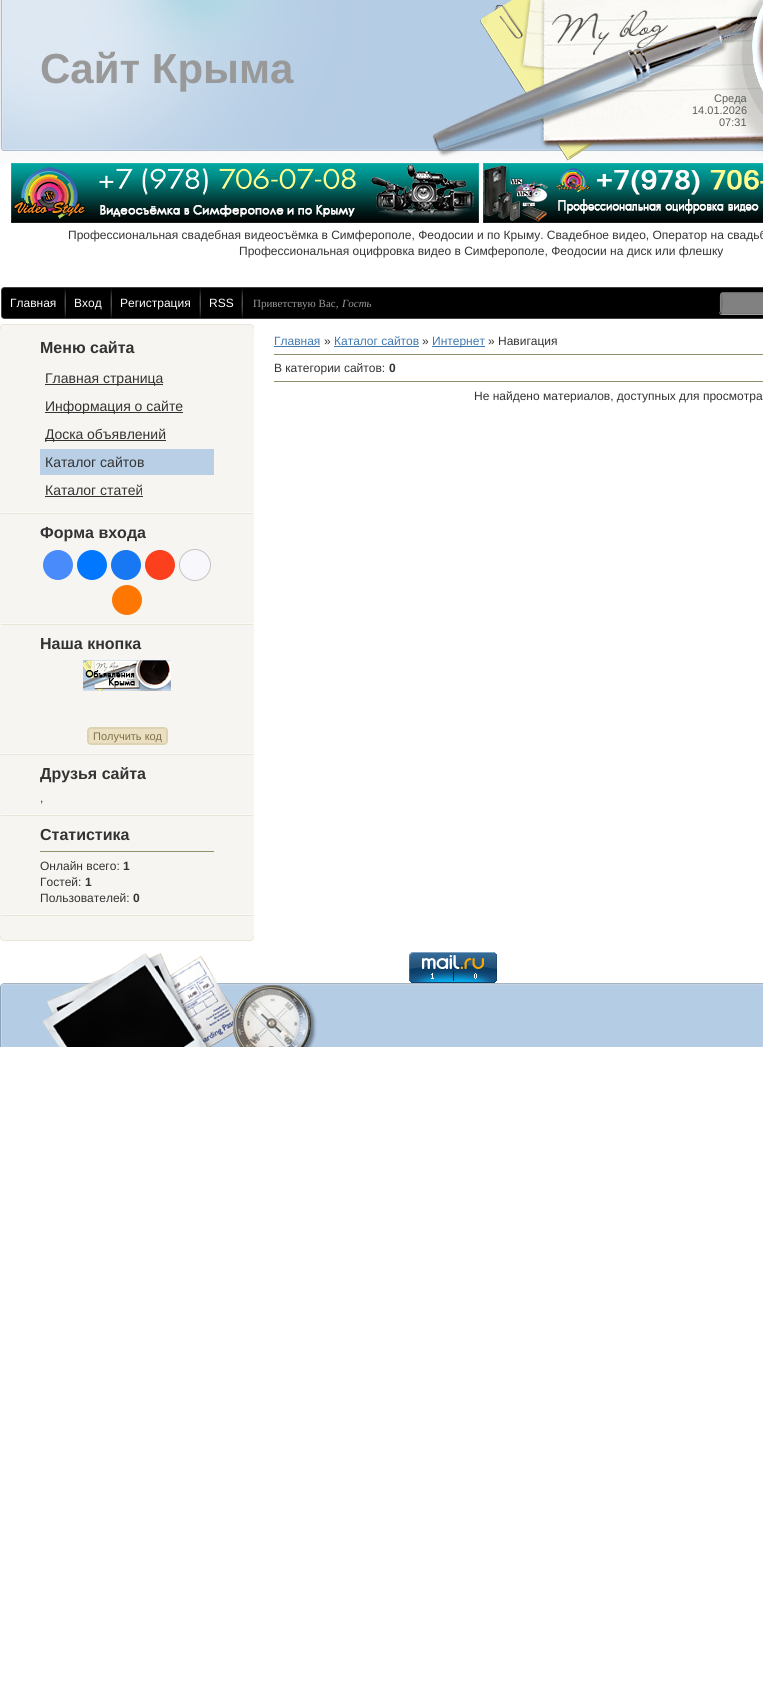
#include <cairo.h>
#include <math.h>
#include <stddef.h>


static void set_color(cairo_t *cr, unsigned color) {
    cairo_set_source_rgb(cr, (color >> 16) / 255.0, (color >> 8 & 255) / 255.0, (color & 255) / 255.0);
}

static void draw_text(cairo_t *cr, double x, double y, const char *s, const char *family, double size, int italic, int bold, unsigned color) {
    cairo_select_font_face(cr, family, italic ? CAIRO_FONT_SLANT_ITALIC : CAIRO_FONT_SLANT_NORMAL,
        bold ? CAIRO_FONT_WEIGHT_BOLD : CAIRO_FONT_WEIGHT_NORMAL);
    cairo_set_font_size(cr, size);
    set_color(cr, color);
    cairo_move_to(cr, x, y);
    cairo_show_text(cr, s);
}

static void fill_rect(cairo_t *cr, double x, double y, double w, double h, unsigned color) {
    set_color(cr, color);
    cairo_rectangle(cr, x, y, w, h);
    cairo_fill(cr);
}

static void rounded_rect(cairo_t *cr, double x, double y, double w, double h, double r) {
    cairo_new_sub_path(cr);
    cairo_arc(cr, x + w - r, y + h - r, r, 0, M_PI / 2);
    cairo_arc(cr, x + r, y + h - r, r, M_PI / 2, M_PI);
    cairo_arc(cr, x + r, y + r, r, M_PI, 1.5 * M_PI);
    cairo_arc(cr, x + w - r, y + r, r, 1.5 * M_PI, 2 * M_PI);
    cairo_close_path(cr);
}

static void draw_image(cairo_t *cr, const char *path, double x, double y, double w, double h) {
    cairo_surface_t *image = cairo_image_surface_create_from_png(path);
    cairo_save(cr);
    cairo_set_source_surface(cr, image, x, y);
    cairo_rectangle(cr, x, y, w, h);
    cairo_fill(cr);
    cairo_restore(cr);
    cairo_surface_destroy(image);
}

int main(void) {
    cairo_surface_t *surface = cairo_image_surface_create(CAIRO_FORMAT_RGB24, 763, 1694);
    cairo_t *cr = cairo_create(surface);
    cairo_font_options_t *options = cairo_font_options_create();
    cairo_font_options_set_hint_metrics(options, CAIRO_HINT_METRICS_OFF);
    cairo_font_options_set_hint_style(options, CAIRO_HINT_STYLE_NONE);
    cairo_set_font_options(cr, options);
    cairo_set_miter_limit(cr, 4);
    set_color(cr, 0xFFFFFF);
    cairo_paint(cr);
    draw_image(cr, "assets/img1.png", 0, 0, 763, 164);
    draw_image(cr, "assets/img2.png", 0, 0, 763, 151);
    draw_text(cr, 40, 83, "Сайт Крыма", "Liberation Sans", 42, 0, 1, 0x999999);
    draw_image(cr, "assets/img3.png", 432, 0, 331, 161);
    draw_text(cr, 714, 102, "Среда", "Liberation Sans", 11, 0, 0, 0x5C5C5C);
    draw_text(cr, 692, 114, "14.01.2026", "Liberation Sans", 11, 0, 0, 0x5C5C5C);
    draw_text(cr, 719, 126, "07:31", "Liberation Sans", 11, 0, 0, 0x5C5C5C);
    draw_image(cr, "assets/img4.png", 11, 163, 468, 60);
    draw_image(cr, "assets/img5.png", 483, 163, 280, 60);
    draw_text(cr, 68, 239, "Профессиональная свадебная видеосъёмка в Симферополе, Феодосии и по Крыму. Свадебное видео, Оператор на свадьб", "Liberation Sans", 12, 0, 0, 0x333333);
    draw_text(cr, 239, 255, "Профессиональная оцифровка видео в Симферополе, Феодосии на диск или флешку", "Liberation Sans", 12, 0, 0, 0x333333);
    draw_image(cr, "assets/img6.png", 1, 287, 762, 32);
    draw_image(cr, "assets/img7.png", 64, 288, 2, 31);
    draw_text(cr, 10, 307, "Главная", "Liberation Sans", 12, 0, 0, 0xFFFFFF);
    draw_image(cr, "assets/img7.png", 110, 288, 2, 31);
    draw_text(cr, 74, 307, "Вход", "Liberation Sans", 12, 0, 0, 0xFFFFFF);
    draw_image(cr, "assets/img7.png", 199, 288, 2, 31);
    draw_text(cr, 120, 307, "Регистрация", "Liberation Sans", 12, 0, 0, 0xFFFFFF);
    draw_image(cr, "assets/img7.png", 241, 288, 2, 31);
    draw_text(cr, 209, 307, "RSS", "Liberation Sans", 12, 0, 0, 0xFFFFFF);
    draw_text(cr, 253, 307, "Приветствую Вас,", "Liberation Serif", 11, 0, 0, 0x999999);
    draw_text(cr, 342, 307, "Гость", "Liberation Serif", 11, 1, 0, 0x999999);
    draw_image(cr, "assets/img8.png", 719, 292, 44, 23);
    draw_image(cr, "assets/img9.png", 0, 324, 254, 5);
    fill_rect(cr, 0, 329, 254, 607, 0xF6F5F1);
    draw_image(cr, "assets/img10.png", 1, 512, 252, 2);
    draw_text(cr, 40, 353, "Меню сайта", "Liberation Sans", 16, 0, 1, 0x333333);
    fill_rect(cr, 45, 384, 118, 1, 0x333333);
    draw_text(cr, 45, 383, "Главная страница", "Liberation Sans", 14, 0, 0, 0x333333);
    fill_rect(cr, 45, 412, 138, 1, 0x333333);
    draw_text(cr, 45, 411, "Информация о сайте", "Liberation Sans", 14, 0, 0, 0x333333);
    fill_rect(cr, 45, 440, 121, 1, 0x333333);
    draw_text(cr, 45, 439, "Доска объявлений", "Liberation Sans", 14, 0, 0, 0x333333);
    fill_rect(cr, 40, 449, 174, 26, 0xB8CFE6);
    draw_text(cr, 45, 467, "Каталог сайтов", "Liberation Sans", 14, 0, 0, 0x333333);
    draw_text(cr, 45, 495, "Каталог статей", "Liberation Sans", 14, 0, 0, 0x333333);
    fill_rect(cr, 45, 496, 98, 1, 0x333333);
    draw_image(cr, "assets/img10.png", 1, 623, 252, 2);
    draw_text(cr, 40, 538, "Форма входа", "Liberation Sans", 16, 0, 1, 0x333333);
    set_color(cr, 0x498BFA);
    cairo_new_path(cr);
    cairo_arc(cr, 58, 565, 15, 0, 2 * M_PI);
    cairo_fill(cr);
    set_color(cr, 0x0077FF);
    cairo_arc(cr, 92, 565, 15, 0, 2 * M_PI);
    cairo_fill(cr);
    set_color(cr, 0x1877F2);
    cairo_arc(cr, 126, 565, 15, 0, 2 * M_PI);
    cairo_fill(cr);
    set_color(cr, 0xFC3F1D);
    cairo_arc(cr, 160, 565, 15, 0, 2 * M_PI);
    cairo_fill(cr);
    set_color(cr, 0xF8F8FC);
    cairo_arc(cr, 195, 565, 15.5, 0, 2 * M_PI);
    cairo_fill_preserve(cr);
    set_color(cr, 0xC4C4C4);
    cairo_set_line_width(cr, 1);
    cairo_stroke(cr);
    set_color(cr, 0xFF7700);
    cairo_arc(cr, 127, 600, 15, 0, 2 * M_PI);
    cairo_fill(cr);
    draw_image(cr, "assets/img10.png", 1, 753, 252, 2);
    draw_text(cr, 40, 649, "Наша кнопка", "Liberation Sans", 16, 0, 1, 0x333333);
    draw_image(cr, "assets/img11.png", 83, 660, 88, 31);
    set_color(cr, 0xEADFC1);
    rounded_rect(cr, 88, 728, 79, 16, 3);
    cairo_fill_preserve(cr);
    set_color(cr, 0xDDD3B4);
    cairo_set_line_width(cr, 2);
    cairo_stroke(cr);
    draw_text(cr, 93, 740, "Получить код", "Liberation Sans", 11, 0, 0, 0x7F7047);
    draw_image(cr, "assets/img10.png", 1, 814, 252, 2);
    draw_text(cr, 40, 779, "Друзья сайта", "Liberation Sans", 16, 0, 1, 0x333333);
    draw_text(cr, 40, 802, ",", "Liberation Sans", 12, 0, 0, 0x333333);
    draw_image(cr, "assets/img10.png", 1, 914, 252, 2);
    draw_text(cr, 40, 840, "Статистика", "Liberation Sans", 16, 0, 1, 0x333333);
    fill_rect(cr, 40, 851, 174, 1, 0x918F69);
    draw_text(cr, 40, 870, "Онлайн всего:", "Liberation Sans", 12, 0, 0, 0x333333);
    draw_text(cr, 123, 870, "1", "Liberation Sans", 12, 0, 1, 0x333333);
    draw_text(cr, 40, 886, "Гостей:", "Liberation Sans", 12, 0, 0, 0x333333);
    draw_text(cr, 85, 886, "1", "Liberation Sans", 12, 0, 1, 0x333333);
    draw_text(cr, 40, 902, "Пользователей:", "Liberation Sans", 12, 0, 0, 0x333333);
    draw_text(cr, 133, 902, "0", "Liberation Sans", 12, 0, 1, 0x333333);
    draw_image(cr, "assets/img12.png", 0, 936, 254, 5);
    draw_text(cr, 274, 345, "Главная", "Liberation Sans", 12, 0, 0, 0x407AB2);
    fill_rect(cr, 274, 346, 46, 1, 0x407AB2);
    draw_text(cr, 324, 345, "»", "Liberation Sans", 12, 0, 0, 0x333333);
    draw_text(cr, 334, 345, "Каталог сайтов", "Liberation Sans", 12, 0, 0, 0x407AB2);
    fill_rect(cr, 334, 346, 85, 1, 0x407AB2);
    draw_text(cr, 422, 345, "»", "Liberation Sans", 12, 0, 0, 0x333333);
    fill_rect(cr, 432, 346, 53, 1, 0x407AB2);
    draw_text(cr, 432, 345, "Интернет", "Liberation Sans", 12, 0, 0, 0x407AB2);
    draw_text(cr, 488, 345, "» Навигация", "Liberation Sans", 12, 0, 0, 0x333333);
    fill_rect(cr, 274, 354, 489, 1, 0x918F69);
    draw_text(cr, 274, 372, "В категории сайтов:", "Liberation Sans", 12, 0, 0, 0x333333);
    draw_text(cr, 389, 372, "0", "Liberation Sans", 12, 0, 1, 0x333333);
    fill_rect(cr, 274, 381, 489, 1, 0x918F69);
    draw_text(cr, 474, 400, "Не найдено материалов, доступных для просмотра", "Liberation Sans", 12, 0, 0, 0x333333);
    draw_image(cr, "assets/img13.png", 0, 983, 763, 64);
    draw_image(cr, "assets/img14.png", 42, 952, 275, 95);
    draw_image(cr, "assets/img15.png", 409, 952, 88, 31);
    cairo_surface_write_to_png(surface, "output.png");
    cairo_font_options_destroy(options);
    cairo_destroy(cr);
    cairo_surface_destroy(surface);
    return 0;
}
